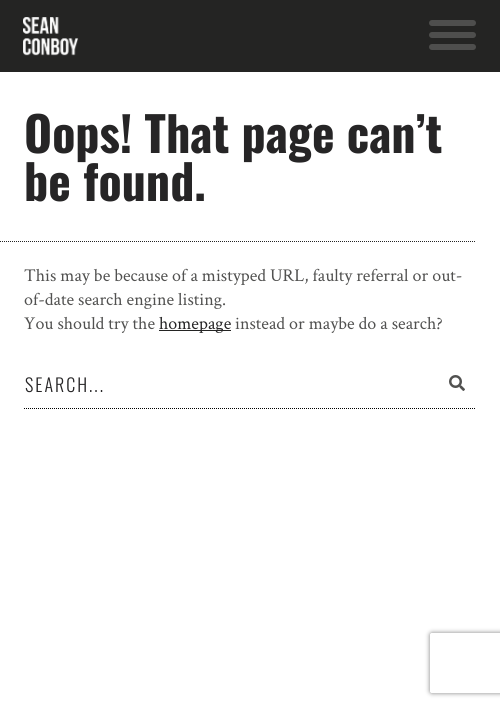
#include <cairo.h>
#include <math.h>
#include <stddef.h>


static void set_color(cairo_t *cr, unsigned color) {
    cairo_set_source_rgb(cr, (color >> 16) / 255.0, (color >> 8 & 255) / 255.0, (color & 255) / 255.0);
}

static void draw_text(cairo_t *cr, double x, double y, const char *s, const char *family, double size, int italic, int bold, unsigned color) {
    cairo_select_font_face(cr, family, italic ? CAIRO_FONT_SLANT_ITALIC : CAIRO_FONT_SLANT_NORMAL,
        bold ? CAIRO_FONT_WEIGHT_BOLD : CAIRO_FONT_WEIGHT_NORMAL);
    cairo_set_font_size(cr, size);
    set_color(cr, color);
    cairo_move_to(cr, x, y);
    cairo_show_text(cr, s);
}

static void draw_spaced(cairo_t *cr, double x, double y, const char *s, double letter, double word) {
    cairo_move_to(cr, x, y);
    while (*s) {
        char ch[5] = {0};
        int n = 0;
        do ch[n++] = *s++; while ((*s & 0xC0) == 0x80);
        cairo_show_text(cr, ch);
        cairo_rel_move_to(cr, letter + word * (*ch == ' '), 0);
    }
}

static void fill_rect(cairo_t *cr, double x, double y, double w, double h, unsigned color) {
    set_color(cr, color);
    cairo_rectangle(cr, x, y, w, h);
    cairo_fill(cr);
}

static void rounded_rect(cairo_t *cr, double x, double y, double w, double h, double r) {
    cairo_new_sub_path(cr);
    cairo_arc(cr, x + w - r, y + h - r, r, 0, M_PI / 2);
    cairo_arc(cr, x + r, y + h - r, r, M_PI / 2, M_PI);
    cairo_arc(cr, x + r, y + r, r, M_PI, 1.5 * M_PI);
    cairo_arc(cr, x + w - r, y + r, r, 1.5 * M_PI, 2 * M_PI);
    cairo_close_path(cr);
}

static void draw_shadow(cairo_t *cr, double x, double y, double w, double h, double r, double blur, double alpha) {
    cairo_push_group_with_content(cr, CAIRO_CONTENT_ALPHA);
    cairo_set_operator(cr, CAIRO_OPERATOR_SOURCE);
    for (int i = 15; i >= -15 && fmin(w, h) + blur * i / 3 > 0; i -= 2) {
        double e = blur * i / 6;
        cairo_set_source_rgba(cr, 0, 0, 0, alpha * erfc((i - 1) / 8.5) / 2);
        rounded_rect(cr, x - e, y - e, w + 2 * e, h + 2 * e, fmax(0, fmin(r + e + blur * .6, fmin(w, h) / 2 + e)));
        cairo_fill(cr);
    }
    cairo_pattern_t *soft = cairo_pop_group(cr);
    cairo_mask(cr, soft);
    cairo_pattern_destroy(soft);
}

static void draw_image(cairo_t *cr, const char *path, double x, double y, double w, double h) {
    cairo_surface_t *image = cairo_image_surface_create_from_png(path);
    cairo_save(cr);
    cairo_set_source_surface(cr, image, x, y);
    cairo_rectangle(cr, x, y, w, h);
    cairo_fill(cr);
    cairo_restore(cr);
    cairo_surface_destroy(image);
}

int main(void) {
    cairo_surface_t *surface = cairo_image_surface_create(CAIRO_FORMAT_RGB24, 500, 707);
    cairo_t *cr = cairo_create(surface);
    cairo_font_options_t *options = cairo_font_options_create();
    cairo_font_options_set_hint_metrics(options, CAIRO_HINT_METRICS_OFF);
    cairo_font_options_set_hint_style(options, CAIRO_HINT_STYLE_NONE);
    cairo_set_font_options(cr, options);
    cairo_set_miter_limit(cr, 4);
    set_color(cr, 0xFFFFFF);
    cairo_paint(cr);
    fill_rect(cr, 0, 0, 500, 72, 0x242423);
    draw_image(cr, "assets/img1.png", 23, 17, 56, 39);
    set_color(cr, 0x4E4E4D);
    rounded_rect(cr, 429, 32, 47, 6, 3);
    cairo_fill(cr);
    rounded_rect(cr, 429, 20, 47, 6, 3);
    cairo_fill(cr);
    rounded_rect(cr, 429, 44, 47, 6, 3);
    cairo_fill(cr);
    draw_text(cr, 24, 153, "Oops! That page can’t", "Oswald", 48, 0, 1, 0x262526);
    draw_text(cr, 24, 201, "be found.", "Oswald", 48, 0, 1, 0x262526);
    cairo_new_path(cr);
    cairo_move_to(cr, -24, 241.5);
    cairo_line_to(cr, 476, 241.5);
    set_color(cr, 0x242423);
    cairo_set_line_width(cr, 1);
    cairo_set_dash(cr, (double[]){1, 1}, 2, 0);
    cairo_stroke(cr);
    draw_text(cr, 24, 281, "This may be because of a mistyped URL, faulty referral or out-", "Crimson Text", 18, 0, 0, 0x515150);
    draw_text(cr, 24, 305, "of-date search engine listing.", "Crimson Text", 18, 0, 0, 0x515150);
    draw_text(cr, 24, 329, "You should try the", "Crimson Text", 18, 0, 0, 0x515150);
    fill_rect(cr, 159, 330, 72, 1, 0x242423);
    draw_text(cr, 159, 329, "homepage", "Crimson Text", 18, 0, 0, 0x262526);
    draw_text(cr, 235, 329, "instead or maybe do a search?", "Crimson Text", 18, 0, 0, 0x515150);
    cairo_new_path(cr);
    cairo_move_to(cr, 24, 408.5);
    cairo_line_to(cr, 476, 408.5);
    set_color(cr, 0x000000);
    cairo_stroke(cr);
    cairo_select_font_face(cr, "Oswald Light", CAIRO_FONT_SLANT_NORMAL, CAIRO_FONT_WEIGHT_NORMAL);
    set_color(cr, 0x262526);
    draw_spaced(cr, 25, 392, "SEARCH...", 2, 0);
    draw_image(cr, "assets/img2.png", 449, 375, 16, 16);
    cairo_save(cr);
    cairo_set_fill_rule(cr, CAIRO_FILL_RULE_EVEN_ODD);
    cairo_new_path(cr);
    cairo_move_to(cr, 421, 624);
    cairo_line_to(cr, 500, 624);
    cairo_line_to(cr, 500, 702);
    cairo_line_to(cr, 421, 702);
    cairo_close_path(cr);
    cairo_move_to(cr, 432, 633);
    cairo_line_to(cr, 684, 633);
    cairo_curve_to(cr, 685, 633, 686, 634, 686, 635);
    cairo_line_to(cr, 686, 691);
    cairo_curve_to(cr, 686, 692, 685, 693, 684, 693);
    cairo_line_to(cr, 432, 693);
    cairo_curve_to(cr, 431, 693, 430, 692, 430, 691);
    cairo_line_to(cr, 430, 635);
    cairo_curve_to(cr, 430, 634, 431, 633, 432, 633);
    cairo_close_path(cr);
    cairo_clip(cr);
    set_color(cr, 0x808080);
    draw_shadow(cr, 430, 633, 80, 60, 2, 2.5, 1);
    cairo_restore(cr);
    cairo_surface_write_to_png(surface, "output.png");
    cairo_font_options_destroy(options);
    cairo_destroy(cr);
    cairo_surface_destroy(surface);
    return 0;
}
